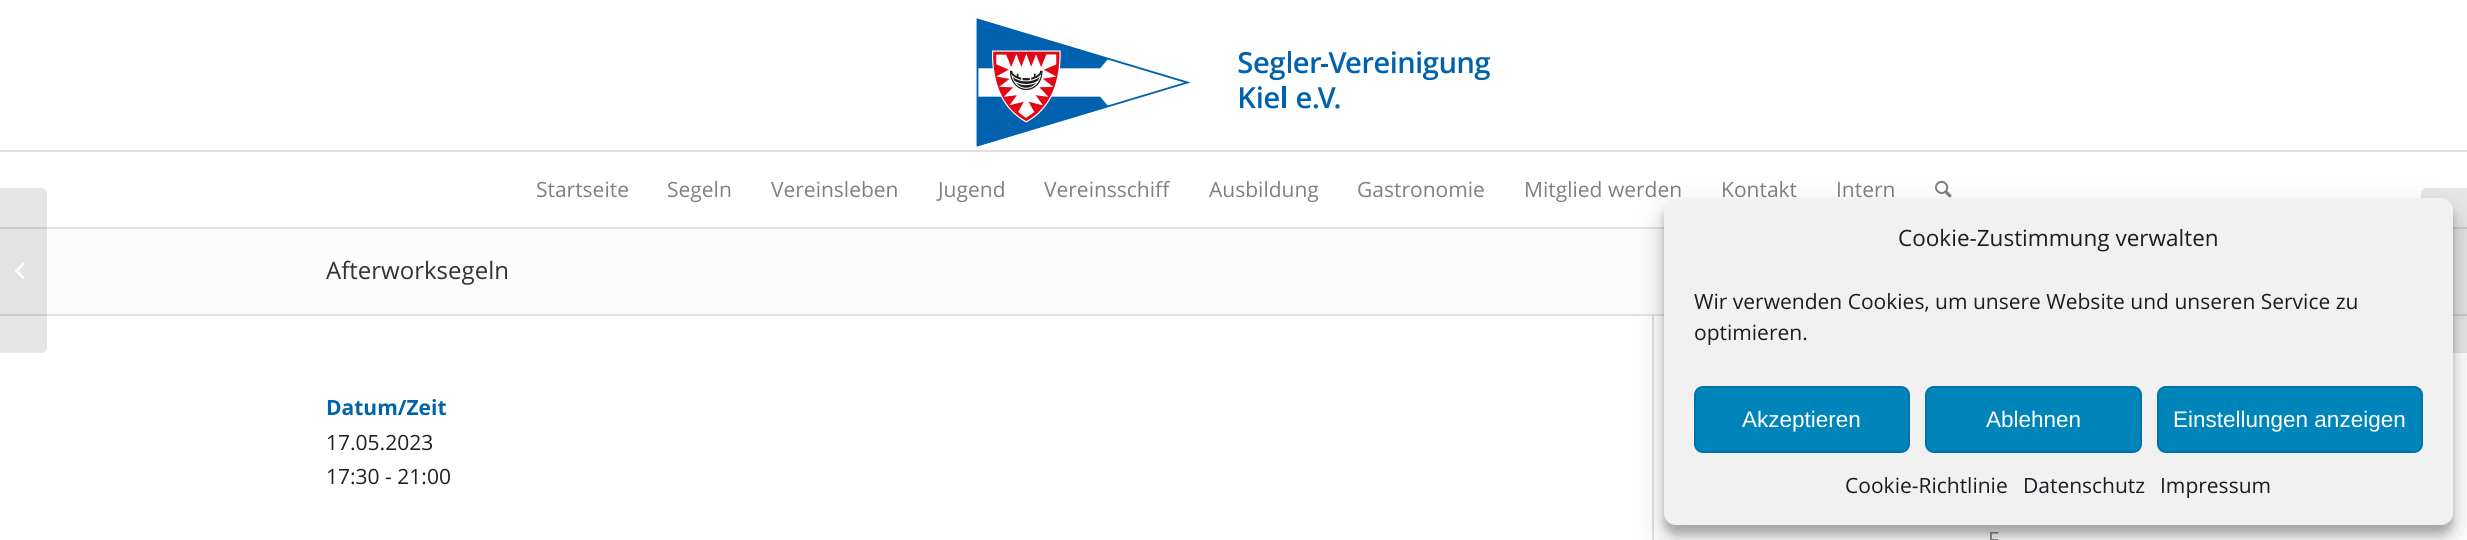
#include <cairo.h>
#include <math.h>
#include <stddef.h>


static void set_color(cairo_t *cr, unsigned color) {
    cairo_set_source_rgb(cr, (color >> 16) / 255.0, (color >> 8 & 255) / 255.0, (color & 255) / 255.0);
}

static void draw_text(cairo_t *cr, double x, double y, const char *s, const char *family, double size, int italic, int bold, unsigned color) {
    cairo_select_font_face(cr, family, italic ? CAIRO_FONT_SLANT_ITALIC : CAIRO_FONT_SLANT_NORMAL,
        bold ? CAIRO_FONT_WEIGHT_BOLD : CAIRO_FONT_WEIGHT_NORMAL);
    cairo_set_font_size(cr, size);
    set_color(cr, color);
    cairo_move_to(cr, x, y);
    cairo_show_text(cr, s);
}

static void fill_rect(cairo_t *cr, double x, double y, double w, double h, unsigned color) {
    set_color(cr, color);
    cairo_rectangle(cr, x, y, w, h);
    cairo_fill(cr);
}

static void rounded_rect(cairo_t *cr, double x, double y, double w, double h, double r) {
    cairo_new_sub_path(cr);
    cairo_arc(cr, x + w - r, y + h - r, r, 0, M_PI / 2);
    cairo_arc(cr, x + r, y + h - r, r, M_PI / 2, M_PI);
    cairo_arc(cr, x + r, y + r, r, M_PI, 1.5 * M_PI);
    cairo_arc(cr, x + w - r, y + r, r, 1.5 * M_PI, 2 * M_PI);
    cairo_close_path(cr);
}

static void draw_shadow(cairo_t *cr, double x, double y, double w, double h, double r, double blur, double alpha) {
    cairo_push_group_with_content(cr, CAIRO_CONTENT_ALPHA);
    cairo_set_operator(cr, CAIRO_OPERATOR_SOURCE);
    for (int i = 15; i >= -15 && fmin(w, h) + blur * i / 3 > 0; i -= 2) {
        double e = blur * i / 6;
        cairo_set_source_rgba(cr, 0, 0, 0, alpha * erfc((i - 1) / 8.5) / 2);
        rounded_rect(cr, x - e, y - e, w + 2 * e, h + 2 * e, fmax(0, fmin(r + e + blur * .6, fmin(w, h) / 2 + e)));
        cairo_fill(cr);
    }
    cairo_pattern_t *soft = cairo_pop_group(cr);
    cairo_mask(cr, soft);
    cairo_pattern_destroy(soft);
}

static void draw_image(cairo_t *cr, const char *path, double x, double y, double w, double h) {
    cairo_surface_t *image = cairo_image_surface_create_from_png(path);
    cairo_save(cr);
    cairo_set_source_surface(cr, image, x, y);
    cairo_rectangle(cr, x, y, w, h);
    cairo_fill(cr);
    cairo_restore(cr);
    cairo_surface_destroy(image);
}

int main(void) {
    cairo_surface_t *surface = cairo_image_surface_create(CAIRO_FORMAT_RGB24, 2467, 540);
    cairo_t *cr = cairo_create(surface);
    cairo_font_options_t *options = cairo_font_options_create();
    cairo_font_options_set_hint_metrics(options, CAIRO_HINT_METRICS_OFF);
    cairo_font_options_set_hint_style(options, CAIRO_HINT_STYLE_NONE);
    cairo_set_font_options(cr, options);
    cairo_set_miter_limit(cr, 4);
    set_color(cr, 0xFFFFFF);
    cairo_paint(cr);
    fill_rect(cr, 0, 227, 2467, 2, 0xE1E1E1);
    fill_rect(cr, 0, 229, 2467, 85, 0xFCFCFC);
    fill_rect(cr, 0, 314, 2467, 2, 0xE1E1E1);
    cairo_set_source_rgba(cr, 0, 0, 0, 0.1);
    cairo_new_path(cr);
    cairo_move_to(cr, 0, 188);
    cairo_line_to(cr, 41, 188);
    cairo_curve_to(cr, 44.5, 188, 47, 190.5, 47, 194);
    cairo_line_to(cr, 47, 347);
    cairo_curve_to(cr, 47, 350.5, 44.5, 353, 41, 353);
    cairo_line_to(cr, 0, 353);
    cairo_close_path(cr);
    cairo_fill(cr);
    draw_image(cr, "assets/img1.png", 15, 262, 10, 17);
    draw_image(cr, "assets/img2.png", 976, 18, 515, 129);
    fill_rect(cr, 0, 150, 2467, 2, 0xE1E1E1);
    draw_text(cr, 536, 197, "Startseite", "Open Sans", 21, 0, 0, 0x808080);
    draw_text(cr, 667, 197, "Segeln", "Open Sans", 21, 0, 0, 0x808080);
    draw_text(cr, 771, 197, "Vereinsleben", "Open Sans", 21, 0, 0, 0x808080);
    draw_text(cr, 938, 197, "Jugend", "Open Sans", 21, 0, 0, 0x808080);
    draw_text(cr, 1044, 197, "Vereinsschiff", "Open Sans", 21, 0, 0, 0x808080);
    draw_text(cr, 1209, 197, "Ausbildung", "Open Sans", 21, 0, 0, 0x808080);
    draw_text(cr, 1357, 197, "Gastronomie", "Open Sans", 21, 0, 0, 0x808080);
    draw_text(cr, 1524, 197, "Mitglied werden", "Open Sans", 21, 0, 0, 0x808080);
    draw_text(cr, 1721, 197, "Kontakt", "Open Sans", 21, 0, 0, 0x808080);
    draw_text(cr, 1836, 197, "Intern", "Open Sans", 21, 0, 0, 0x808080);
    draw_image(cr, "assets/img3.png", 1935, 180, 17, 18);
    cairo_set_source_rgba(cr, 0, 0, 0, 0.1);
    cairo_new_path(cr);
    cairo_move_to(cr, 2427, 188);
    cairo_line_to(cr, 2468, 188);
    cairo_line_to(cr, 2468, 353);
    cairo_line_to(cr, 2427, 353);
    cairo_curve_to(cr, 2423.5, 353, 2421, 350.5, 2421, 347);
    cairo_line_to(cr, 2421, 194);
    cairo_curve_to(cr, 2421, 190.5, 2423.5, 188, 2427, 188);
    cairo_close_path(cr);
    cairo_fill(cr);
    draw_text(cr, 326, 279, "Afterworksegeln", "Open Sans", 24, 0, 0, 0x333333);
    fill_rect(cr, 1652, 315, 2, 225, 0xE1E1E1);
    draw_text(cr, 326, 415, "Datum/Zeit", "Open Sans", 21, 0, 1, 0x0064AC);
    draw_text(cr, 326, 450, "17.05.2023", "Open Sans", 21, 0, 0, 0x212121);
    draw_text(cr, 326, 484, "17:30 - 21:00", "Open Sans", 21, 0, 0, 0x212121);
    draw_text(cr, 1988, 547, "F", "Open Sans", 21, 0, 0, 0x888888);
    set_color(cr, 0x000000);
    draw_shadow(cr, 1664, 207, 789, 327, 12, 4.5, 0.23);
    draw_shadow(cr, 1664, 213, 789, 327, 12, 15, 0.19);
    set_color(cr, 0xF1F1F1);
    rounded_rect(cr, 1664, 198, 789, 327, 12);
    cairo_fill(cr);
    draw_text(cr, 1898, 246, "Cookie-Zustimmung verwalten", "Open Sans", 22.5, 0, 0, 0x191E23);
    draw_text(cr, 1694, 309, "Wir verwenden Cookies, um unsere Website und unseren Service zu", "Open Sans", 21, 0, 0, 0x191E23);
    draw_text(cr, 1694, 340, "optimieren.", "Open Sans", 21, 0, 0, 0x191E23);
    set_color(cr, 0x0085BA);
    rounded_rect(cr, 1695, 387, 214, 65, 8);
    cairo_fill_preserve(cr);
    set_color(cr, 0x0073AA);
    cairo_stroke(cr);
    draw_text(cr, 1742, 427, "Akzeptieren", "Liberation Sans", 22.5, 0, 0, 0xFFFFFF);
    set_color(cr, 0x0085BA);
    rounded_rect(cr, 1926, 387, 215, 65, 8);
    cairo_fill_preserve(cr);
    set_color(cr, 0x0073AA);
    cairo_stroke(cr);
    draw_text(cr, 1986, 427, "Ablehnen", "Liberation Sans", 22.5, 0, 0, 0xFFFFFF);
    set_color(cr, 0x0085BA);
    rounded_rect(cr, 2158, 387, 264, 65, 8);
    cairo_fill_preserve(cr);
    set_color(cr, 0x0073AA);
    cairo_stroke(cr);
    draw_text(cr, 2173, 427, "Einstellungen anzeigen", "Liberation Sans", 22.5, 0, 0, 0xFFFFFF);
    draw_text(cr, 1845, 493, "Cookie-Richtlinie", "Open Sans", 21, 0, 0, 0x191E23);
    draw_text(cr, 2023, 493, "Datenschutz", "Open Sans", 21, 0, 0, 0x191E23);
    draw_text(cr, 2160, 493, "Impressum", "Open Sans", 21, 0, 0, 0x191E23);
    cairo_surface_write_to_png(surface, "output.png");
    cairo_font_options_destroy(options);
    cairo_destroy(cr);
    cairo_surface_destroy(surface);
    return 0;
}
